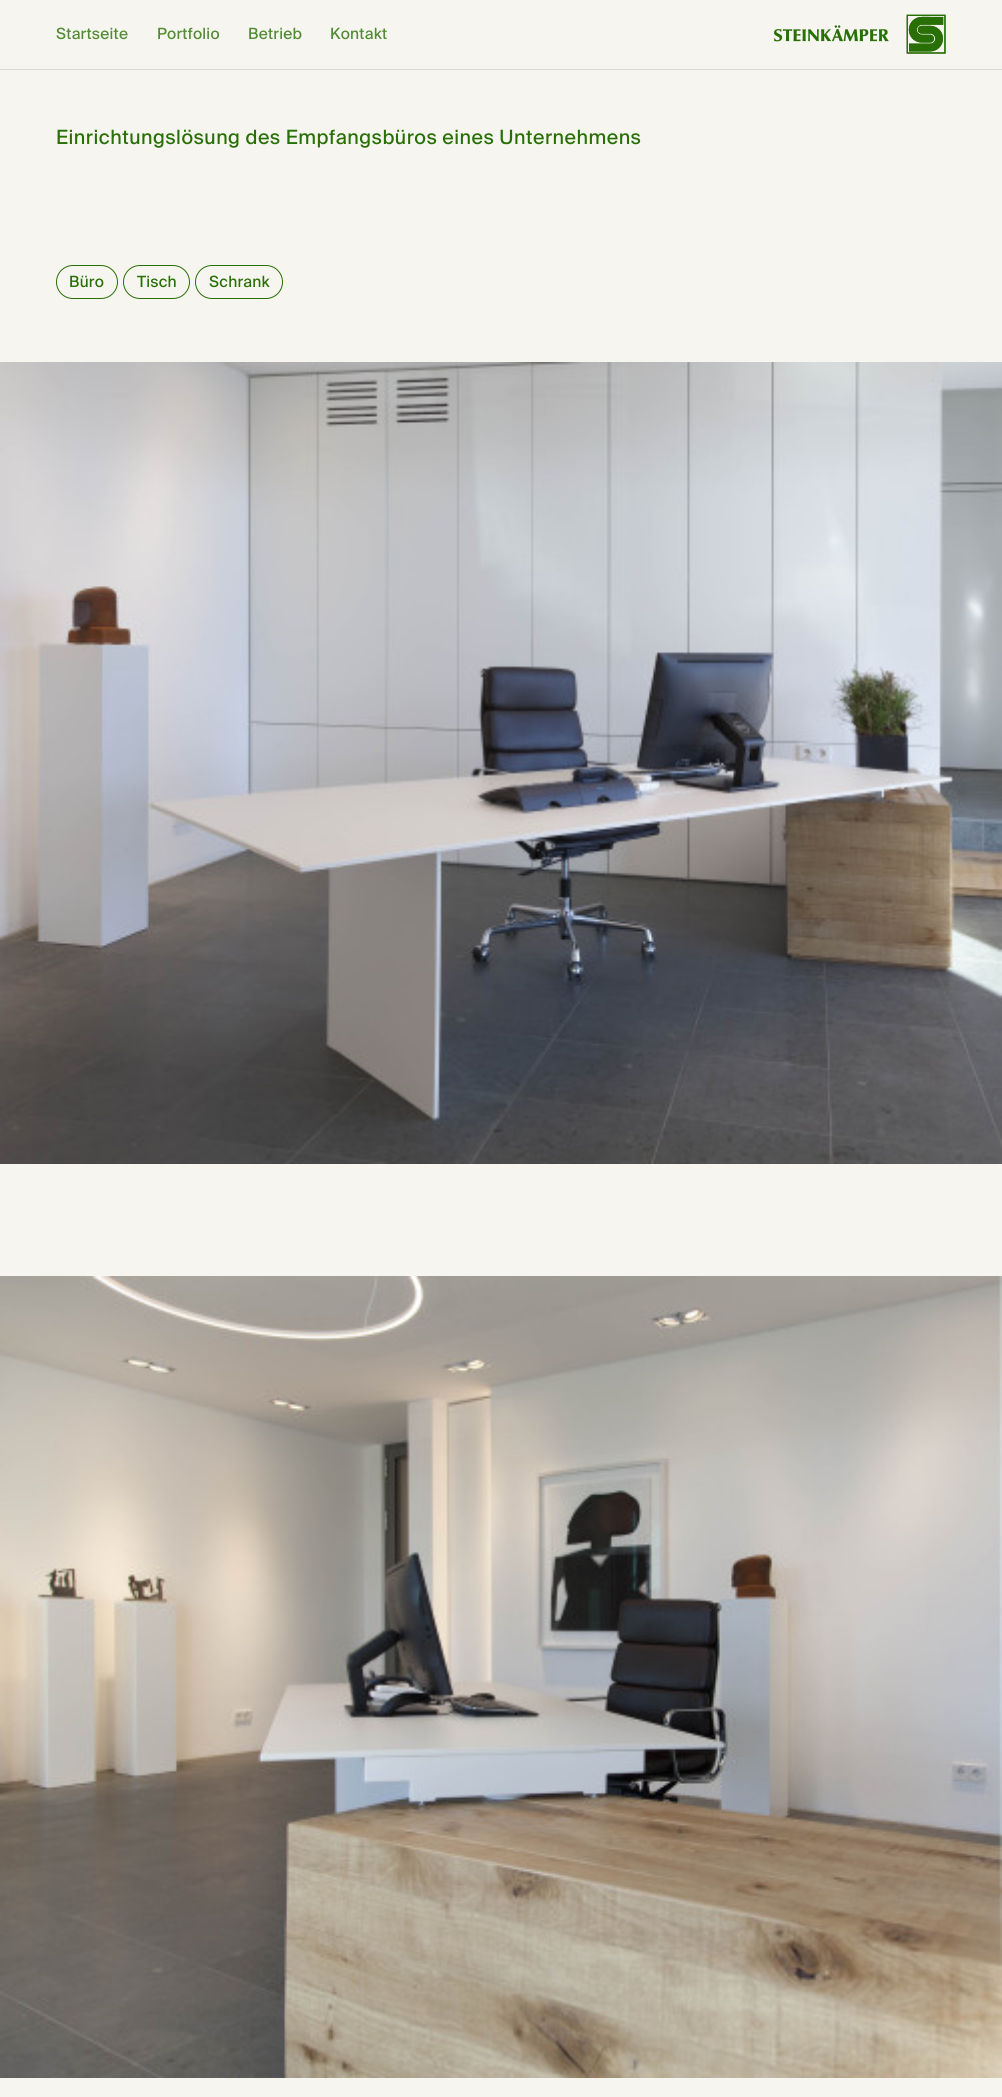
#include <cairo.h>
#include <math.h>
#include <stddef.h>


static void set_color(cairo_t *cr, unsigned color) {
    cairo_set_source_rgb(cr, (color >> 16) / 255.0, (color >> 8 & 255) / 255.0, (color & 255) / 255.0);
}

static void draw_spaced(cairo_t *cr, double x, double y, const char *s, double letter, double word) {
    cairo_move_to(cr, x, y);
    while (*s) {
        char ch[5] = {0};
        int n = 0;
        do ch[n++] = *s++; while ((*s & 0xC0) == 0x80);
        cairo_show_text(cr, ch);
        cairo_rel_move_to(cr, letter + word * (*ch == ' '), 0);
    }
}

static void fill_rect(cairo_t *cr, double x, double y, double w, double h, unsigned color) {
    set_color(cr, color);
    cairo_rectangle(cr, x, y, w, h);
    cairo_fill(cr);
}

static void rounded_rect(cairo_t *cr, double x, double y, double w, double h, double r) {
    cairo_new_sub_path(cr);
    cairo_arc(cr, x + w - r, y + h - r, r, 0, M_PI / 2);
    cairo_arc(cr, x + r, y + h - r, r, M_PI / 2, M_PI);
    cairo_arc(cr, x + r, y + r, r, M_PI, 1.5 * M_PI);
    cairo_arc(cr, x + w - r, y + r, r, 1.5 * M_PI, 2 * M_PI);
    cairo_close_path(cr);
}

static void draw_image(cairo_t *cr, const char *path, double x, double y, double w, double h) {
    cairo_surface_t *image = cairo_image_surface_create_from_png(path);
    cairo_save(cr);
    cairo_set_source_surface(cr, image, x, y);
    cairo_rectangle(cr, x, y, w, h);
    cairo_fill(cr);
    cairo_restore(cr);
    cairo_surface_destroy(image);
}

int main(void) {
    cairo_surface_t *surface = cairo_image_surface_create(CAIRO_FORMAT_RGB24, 1002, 2097);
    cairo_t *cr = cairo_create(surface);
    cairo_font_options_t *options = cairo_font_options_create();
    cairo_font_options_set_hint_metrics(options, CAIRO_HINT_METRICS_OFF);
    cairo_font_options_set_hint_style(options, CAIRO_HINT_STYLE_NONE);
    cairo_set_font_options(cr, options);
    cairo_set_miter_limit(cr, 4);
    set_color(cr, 0xF6F5F0);
    cairo_paint(cr);
    fill_rect(cr, 0, 69, 1002, 1, 0xD9DBD2);
    cairo_select_font_face(cr, "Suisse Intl", CAIRO_FONT_SLANT_NORMAL, CAIRO_FONT_WEIGHT_NORMAL);
    cairo_set_font_size(cr, 15.5);
    set_color(cr, 0x518B34);
    draw_spaced(cr, 56, 39, "Startseite", 0.25, 0);
    draw_spaced(cr, 157, 39, "Portfolio", 0.25, 0);
    draw_spaced(cr, 248, 39, "Betrieb", 0.25, 0);
    draw_spaced(cr, 330, 39, "Kontakt", 0.25, 0);
    draw_image(cr, "assets/img1.png", 774, 14, 172, 40);
    cairo_set_font_size(cr, 19.65);
    set_color(cr, 0x287005);
    draw_spaced(cr, 56, 144, "Einrichtungslösung des Empfangsbüros eines Unternehmens", 0.5, 0);
    rounded_rect(cr, 56.5, 265.5, 61, 33, 16.5);
    cairo_set_line_width(cr, 1);
    cairo_stroke(cr);
    cairo_set_font_size(cr, 15.5);
    draw_spaced(cr, 69, 287, "Büro", 0.25, 0);
    rounded_rect(cr, 123.5, 265.5, 66, 33, 16.5);
    cairo_stroke(cr);
    draw_spaced(cr, 137, 287, "Tisch", 0.25, 0);
    rounded_rect(cr, 195.5, 265.5, 87, 33, 16.5);
    cairo_stroke(cr);
    draw_spaced(cr, 209, 287, "Schrank", 0.25, 0);
    draw_image(cr, "assets/img2.png", 0, 362, 1002, 802);
    draw_image(cr, "assets/img3.png", 0, 1276, 1002, 802);
    cairo_surface_write_to_png(surface, "output.png");
    cairo_font_options_destroy(options);
    cairo_destroy(cr);
    cairo_surface_destroy(surface);
    return 0;
}
